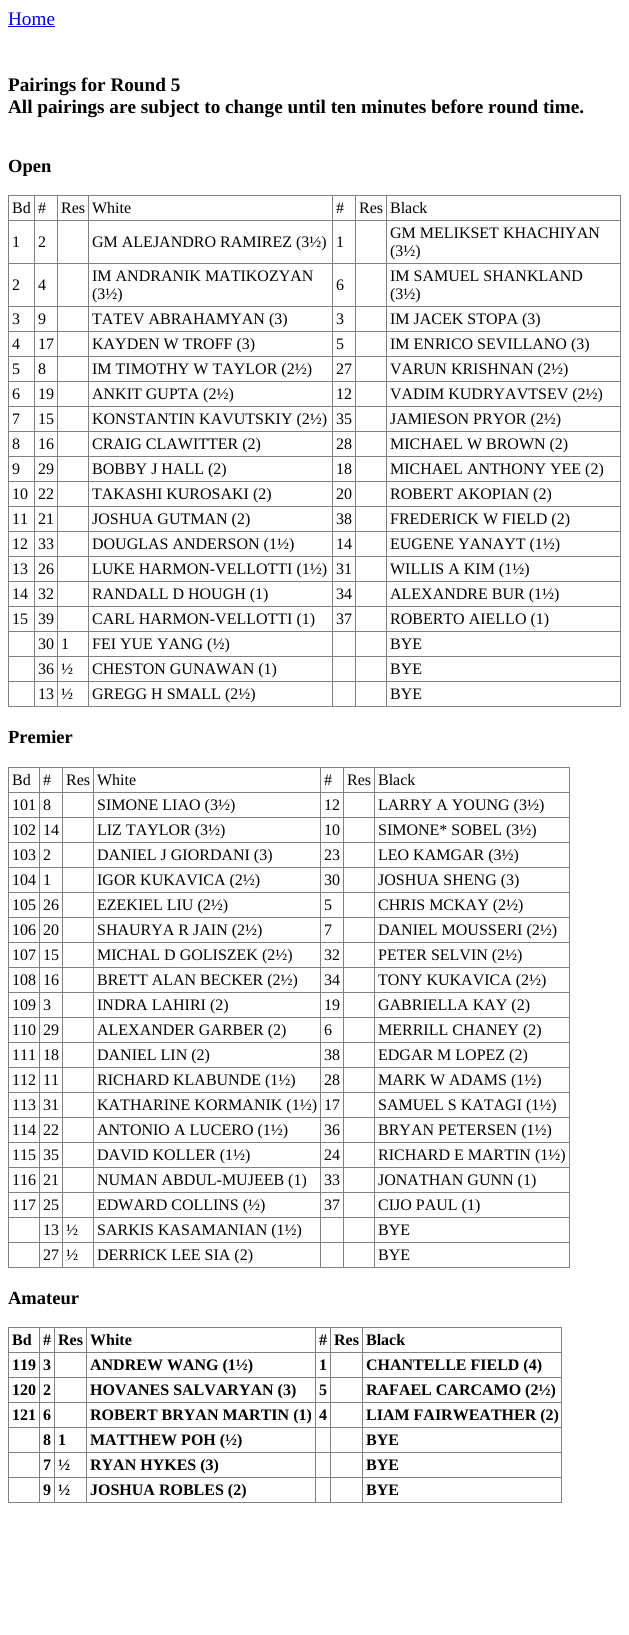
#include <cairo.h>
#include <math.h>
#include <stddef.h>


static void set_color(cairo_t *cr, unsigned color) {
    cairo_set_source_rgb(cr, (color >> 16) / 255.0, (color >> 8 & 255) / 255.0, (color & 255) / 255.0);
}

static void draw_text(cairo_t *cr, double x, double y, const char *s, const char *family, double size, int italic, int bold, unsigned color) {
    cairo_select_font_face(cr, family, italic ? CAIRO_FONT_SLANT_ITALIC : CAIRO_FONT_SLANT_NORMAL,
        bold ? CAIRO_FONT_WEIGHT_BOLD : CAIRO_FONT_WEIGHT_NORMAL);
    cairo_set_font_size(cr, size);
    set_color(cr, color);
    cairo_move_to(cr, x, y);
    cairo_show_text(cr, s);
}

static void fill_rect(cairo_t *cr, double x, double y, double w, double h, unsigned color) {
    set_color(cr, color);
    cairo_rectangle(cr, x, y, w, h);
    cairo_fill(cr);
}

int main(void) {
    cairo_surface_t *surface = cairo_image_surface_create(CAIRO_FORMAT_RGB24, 629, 1635);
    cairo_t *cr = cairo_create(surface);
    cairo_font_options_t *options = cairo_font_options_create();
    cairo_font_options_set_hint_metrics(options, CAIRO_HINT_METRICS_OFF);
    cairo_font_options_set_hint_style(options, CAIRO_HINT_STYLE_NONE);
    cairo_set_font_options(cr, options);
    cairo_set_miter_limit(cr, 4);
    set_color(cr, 0xFFFFFF);
    cairo_paint(cr);
    draw_text(cr, 8, 25, "Home", "Liberation Serif", 19.2, 0, 0, 0x0000EE);
    fill_rect(cr, 8, 26, 47, 1, 0x0000EE);
    draw_text(cr, 8, 91, "Pairings for Round 5", "Liberation Serif", 19.2, 0, 1, 0x000000);
    draw_text(cr, 8, 113, "All pairings are subject to change until ten minutes before round time.", "Liberation Serif", 19.2, 0, 1, 0x000000);
    draw_text(cr, 8, 172, "Open", "Liberation Serif", 18.5, 0, 1, 0x000000);
    fill_rect(cr, 8, 195, 613, 1, 0x808080);
    fill_rect(cr, 620, 195, 1, 512, 0x808080);
    fill_rect(cr, 8, 706, 613, 1, 0x808080);
    fill_rect(cr, 8, 195, 1, 512, 0x808080);
    draw_text(cr, 12, 213, "Bd", "Liberation Serif", 16, 0, 0, 0x000000);
    fill_rect(cr, 386, 220, 235, 1, 0x808080);
    fill_rect(cr, 386, 263, 235, 1, 0x808080);
    fill_rect(cr, 386, 306, 235, 1, 0x808080);
    fill_rect(cr, 386, 331, 235, 1, 0x808080);
    fill_rect(cr, 386, 356, 235, 1, 0x808080);
    fill_rect(cr, 386, 381, 235, 1, 0x808080);
    fill_rect(cr, 386, 406, 235, 1, 0x808080);
    fill_rect(cr, 386, 431, 235, 1, 0x808080);
    fill_rect(cr, 386, 456, 235, 1, 0x808080);
    fill_rect(cr, 386, 481, 235, 1, 0x808080);
    fill_rect(cr, 386, 506, 235, 1, 0x808080);
    fill_rect(cr, 386, 531, 235, 1, 0x808080);
    fill_rect(cr, 386, 556, 235, 1, 0x808080);
    fill_rect(cr, 386, 581, 235, 1, 0x808080);
    fill_rect(cr, 386, 606, 235, 1, 0x808080);
    fill_rect(cr, 386, 631, 235, 1, 0x808080);
    fill_rect(cr, 386, 656, 235, 1, 0x808080);
    fill_rect(cr, 386, 681, 235, 1, 0x808080);
    fill_rect(cr, 386, 681, 1, 26, 0x808080);
    fill_rect(cr, 355, 681, 32, 1, 0x808080);
    fill_rect(cr, 386, 656, 1, 26, 0x808080);
    fill_rect(cr, 355, 656, 32, 1, 0x808080);
    fill_rect(cr, 386, 631, 1, 26, 0x808080);
    fill_rect(cr, 355, 631, 32, 1, 0x808080);
    fill_rect(cr, 386, 606, 1, 26, 0x808080);
    fill_rect(cr, 355, 606, 32, 1, 0x808080);
    fill_rect(cr, 386, 581, 1, 26, 0x808080);
    fill_rect(cr, 355, 581, 32, 1, 0x808080);
    fill_rect(cr, 386, 556, 1, 26, 0x808080);
    fill_rect(cr, 355, 556, 32, 1, 0x808080);
    fill_rect(cr, 386, 531, 1, 26, 0x808080);
    fill_rect(cr, 355, 531, 32, 1, 0x808080);
    fill_rect(cr, 386, 506, 1, 26, 0x808080);
    fill_rect(cr, 355, 506, 32, 1, 0x808080);
    fill_rect(cr, 386, 481, 1, 26, 0x808080);
    fill_rect(cr, 355, 481, 32, 1, 0x808080);
    fill_rect(cr, 386, 456, 1, 26, 0x808080);
    fill_rect(cr, 355, 456, 32, 1, 0x808080);
    fill_rect(cr, 386, 431, 1, 26, 0x808080);
    fill_rect(cr, 355, 431, 32, 1, 0x808080);
    fill_rect(cr, 386, 406, 1, 26, 0x808080);
    fill_rect(cr, 355, 406, 32, 1, 0x808080);
    fill_rect(cr, 386, 381, 1, 26, 0x808080);
    fill_rect(cr, 355, 381, 32, 1, 0x808080);
    fill_rect(cr, 386, 356, 1, 26, 0x808080);
    fill_rect(cr, 355, 356, 32, 1, 0x808080);
    fill_rect(cr, 386, 331, 1, 26, 0x808080);
    fill_rect(cr, 355, 331, 32, 1, 0x808080);
    fill_rect(cr, 386, 306, 1, 26, 0x808080);
    fill_rect(cr, 355, 306, 32, 1, 0x808080);
    fill_rect(cr, 386, 263, 1, 44, 0x808080);
    fill_rect(cr, 355, 263, 32, 1, 0x808080);
    fill_rect(cr, 386, 220, 1, 44, 0x808080);
    fill_rect(cr, 355, 220, 32, 1, 0x808080);
    fill_rect(cr, 355, 681, 1, 26, 0x808080);
    fill_rect(cr, 332, 681, 24, 1, 0x808080);
    fill_rect(cr, 355, 656, 1, 26, 0x808080);
    fill_rect(cr, 332, 656, 24, 1, 0x808080);
    fill_rect(cr, 355, 631, 1, 26, 0x808080);
    fill_rect(cr, 332, 631, 24, 1, 0x808080);
    fill_rect(cr, 355, 606, 1, 26, 0x808080);
    fill_rect(cr, 332, 606, 24, 1, 0x808080);
    fill_rect(cr, 355, 581, 1, 26, 0x808080);
    fill_rect(cr, 332, 581, 24, 1, 0x808080);
    fill_rect(cr, 355, 556, 1, 26, 0x808080);
    fill_rect(cr, 332, 556, 24, 1, 0x808080);
    fill_rect(cr, 355, 531, 1, 26, 0x808080);
    fill_rect(cr, 332, 531, 24, 1, 0x808080);
    fill_rect(cr, 355, 506, 1, 26, 0x808080);
    fill_rect(cr, 332, 506, 24, 1, 0x808080);
    fill_rect(cr, 355, 481, 1, 26, 0x808080);
    fill_rect(cr, 332, 481, 24, 1, 0x808080);
    fill_rect(cr, 355, 456, 1, 26, 0x808080);
    fill_rect(cr, 332, 456, 24, 1, 0x808080);
    fill_rect(cr, 355, 431, 1, 26, 0x808080);
    fill_rect(cr, 332, 431, 24, 1, 0x808080);
    fill_rect(cr, 355, 406, 1, 26, 0x808080);
    fill_rect(cr, 332, 406, 24, 1, 0x808080);
    fill_rect(cr, 355, 381, 1, 26, 0x808080);
    fill_rect(cr, 332, 381, 24, 1, 0x808080);
    fill_rect(cr, 355, 356, 1, 26, 0x808080);
    fill_rect(cr, 332, 356, 24, 1, 0x808080);
    fill_rect(cr, 355, 331, 1, 26, 0x808080);
    fill_rect(cr, 332, 331, 24, 1, 0x808080);
    fill_rect(cr, 355, 306, 1, 26, 0x808080);
    fill_rect(cr, 332, 306, 24, 1, 0x808080);
    fill_rect(cr, 355, 263, 1, 44, 0x808080);
    fill_rect(cr, 332, 263, 24, 1, 0x808080);
    fill_rect(cr, 355, 220, 1, 44, 0x808080);
    fill_rect(cr, 332, 220, 24, 1, 0x808080);
    fill_rect(cr, 332, 681, 1, 26, 0x808080);
    fill_rect(cr, 88, 681, 245, 1, 0x808080);
    fill_rect(cr, 332, 656, 1, 26, 0x808080);
    fill_rect(cr, 88, 656, 245, 1, 0x808080);
    fill_rect(cr, 332, 631, 1, 26, 0x808080);
    fill_rect(cr, 88, 631, 245, 1, 0x808080);
    fill_rect(cr, 332, 606, 1, 26, 0x808080);
    fill_rect(cr, 88, 606, 245, 1, 0x808080);
    fill_rect(cr, 332, 581, 1, 26, 0x808080);
    fill_rect(cr, 88, 581, 245, 1, 0x808080);
    fill_rect(cr, 332, 556, 1, 26, 0x808080);
    fill_rect(cr, 88, 556, 245, 1, 0x808080);
    fill_rect(cr, 332, 531, 1, 26, 0x808080);
    fill_rect(cr, 88, 531, 245, 1, 0x808080);
    fill_rect(cr, 332, 506, 1, 26, 0x808080);
    fill_rect(cr, 88, 506, 245, 1, 0x808080);
    fill_rect(cr, 332, 481, 1, 26, 0x808080);
    fill_rect(cr, 88, 481, 245, 1, 0x808080);
    fill_rect(cr, 332, 456, 1, 26, 0x808080);
    fill_rect(cr, 88, 456, 245, 1, 0x808080);
    fill_rect(cr, 332, 431, 1, 26, 0x808080);
    fill_rect(cr, 88, 431, 245, 1, 0x808080);
    fill_rect(cr, 332, 406, 1, 26, 0x808080);
    fill_rect(cr, 88, 406, 245, 1, 0x808080);
    fill_rect(cr, 332, 381, 1, 26, 0x808080);
    fill_rect(cr, 88, 381, 245, 1, 0x808080);
    fill_rect(cr, 332, 356, 1, 26, 0x808080);
    fill_rect(cr, 88, 356, 245, 1, 0x808080);
    fill_rect(cr, 332, 331, 1, 26, 0x808080);
    fill_rect(cr, 88, 331, 245, 1, 0x808080);
    fill_rect(cr, 332, 306, 1, 26, 0x808080);
    fill_rect(cr, 88, 306, 245, 1, 0x808080);
    fill_rect(cr, 332, 263, 1, 44, 0x808080);
    fill_rect(cr, 88, 263, 245, 1, 0x808080);
    fill_rect(cr, 332, 220, 1, 44, 0x808080);
    fill_rect(cr, 88, 220, 245, 1, 0x808080);
    fill_rect(cr, 88, 681, 1, 26, 0x808080);
    fill_rect(cr, 57, 681, 32, 1, 0x808080);
    fill_rect(cr, 88, 656, 1, 26, 0x808080);
    fill_rect(cr, 57, 656, 32, 1, 0x808080);
    fill_rect(cr, 88, 631, 1, 26, 0x808080);
    fill_rect(cr, 57, 631, 32, 1, 0x808080);
    fill_rect(cr, 88, 606, 1, 26, 0x808080);
    fill_rect(cr, 57, 606, 32, 1, 0x808080);
    fill_rect(cr, 88, 581, 1, 26, 0x808080);
    fill_rect(cr, 57, 581, 32, 1, 0x808080);
    fill_rect(cr, 88, 556, 1, 26, 0x808080);
    fill_rect(cr, 57, 556, 32, 1, 0x808080);
    fill_rect(cr, 88, 531, 1, 26, 0x808080);
    fill_rect(cr, 57, 531, 32, 1, 0x808080);
    fill_rect(cr, 88, 506, 1, 26, 0x808080);
    fill_rect(cr, 57, 506, 32, 1, 0x808080);
    fill_rect(cr, 88, 481, 1, 26, 0x808080);
    fill_rect(cr, 57, 481, 32, 1, 0x808080);
    fill_rect(cr, 88, 456, 1, 26, 0x808080);
    fill_rect(cr, 57, 456, 32, 1, 0x808080);
    fill_rect(cr, 88, 431, 1, 26, 0x808080);
    fill_rect(cr, 57, 431, 32, 1, 0x808080);
    fill_rect(cr, 88, 406, 1, 26, 0x808080);
    fill_rect(cr, 57, 406, 32, 1, 0x808080);
    fill_rect(cr, 88, 381, 1, 26, 0x808080);
    fill_rect(cr, 57, 381, 32, 1, 0x808080);
    fill_rect(cr, 88, 356, 1, 26, 0x808080);
    fill_rect(cr, 57, 356, 32, 1, 0x808080);
    fill_rect(cr, 88, 331, 1, 26, 0x808080);
    fill_rect(cr, 57, 331, 32, 1, 0x808080);
    fill_rect(cr, 88, 306, 1, 26, 0x808080);
    fill_rect(cr, 57, 306, 32, 1, 0x808080);
    fill_rect(cr, 88, 263, 1, 44, 0x808080);
    fill_rect(cr, 57, 263, 32, 1, 0x808080);
    fill_rect(cr, 88, 220, 1, 44, 0x808080);
    fill_rect(cr, 57, 220, 32, 1, 0x808080);
    fill_rect(cr, 57, 681, 1, 26, 0x808080);
    fill_rect(cr, 34, 681, 24, 1, 0x808080);
    fill_rect(cr, 57, 656, 1, 26, 0x808080);
    fill_rect(cr, 34, 656, 24, 1, 0x808080);
    fill_rect(cr, 57, 631, 1, 26, 0x808080);
    fill_rect(cr, 34, 631, 24, 1, 0x808080);
    fill_rect(cr, 57, 606, 1, 26, 0x808080);
    fill_rect(cr, 34, 606, 24, 1, 0x808080);
    fill_rect(cr, 57, 581, 1, 26, 0x808080);
    fill_rect(cr, 34, 581, 24, 1, 0x808080);
    fill_rect(cr, 57, 556, 1, 26, 0x808080);
    fill_rect(cr, 34, 556, 24, 1, 0x808080);
    fill_rect(cr, 57, 531, 1, 26, 0x808080);
    fill_rect(cr, 34, 531, 24, 1, 0x808080);
    fill_rect(cr, 57, 506, 1, 26, 0x808080);
    fill_rect(cr, 34, 506, 24, 1, 0x808080);
    fill_rect(cr, 57, 481, 1, 26, 0x808080);
    fill_rect(cr, 34, 481, 24, 1, 0x808080);
    fill_rect(cr, 57, 456, 1, 26, 0x808080);
    fill_rect(cr, 34, 456, 24, 1, 0x808080);
    fill_rect(cr, 57, 431, 1, 26, 0x808080);
    fill_rect(cr, 34, 431, 24, 1, 0x808080);
    fill_rect(cr, 57, 406, 1, 26, 0x808080);
    fill_rect(cr, 34, 406, 24, 1, 0x808080);
    fill_rect(cr, 57, 381, 1, 26, 0x808080);
    fill_rect(cr, 34, 381, 24, 1, 0x808080);
    fill_rect(cr, 57, 356, 1, 26, 0x808080);
    fill_rect(cr, 34, 356, 24, 1, 0x808080);
    fill_rect(cr, 57, 331, 1, 26, 0x808080);
    fill_rect(cr, 34, 331, 24, 1, 0x808080);
    fill_rect(cr, 57, 306, 1, 26, 0x808080);
    fill_rect(cr, 34, 306, 24, 1, 0x808080);
    fill_rect(cr, 57, 263, 1, 44, 0x808080);
    fill_rect(cr, 34, 263, 24, 1, 0x808080);
    fill_rect(cr, 57, 220, 1, 44, 0x808080);
    fill_rect(cr, 34, 220, 24, 1, 0x808080);
    fill_rect(cr, 34, 681, 1, 26, 0x808080);
    fill_rect(cr, 8, 681, 27, 1, 0x808080);
    fill_rect(cr, 34, 656, 1, 26, 0x808080);
    fill_rect(cr, 8, 656, 27, 1, 0x808080);
    fill_rect(cr, 34, 631, 1, 26, 0x808080);
    fill_rect(cr, 8, 631, 27, 1, 0x808080);
    fill_rect(cr, 34, 606, 1, 26, 0x808080);
    fill_rect(cr, 8, 606, 27, 1, 0x808080);
    fill_rect(cr, 34, 581, 1, 26, 0x808080);
    fill_rect(cr, 8, 581, 27, 1, 0x808080);
    fill_rect(cr, 34, 556, 1, 26, 0x808080);
    fill_rect(cr, 8, 556, 27, 1, 0x808080);
    fill_rect(cr, 34, 531, 1, 26, 0x808080);
    fill_rect(cr, 8, 531, 27, 1, 0x808080);
    fill_rect(cr, 34, 506, 1, 26, 0x808080);
    fill_rect(cr, 8, 506, 27, 1, 0x808080);
    fill_rect(cr, 34, 481, 1, 26, 0x808080);
    fill_rect(cr, 8, 481, 27, 1, 0x808080);
    fill_rect(cr, 34, 456, 1, 26, 0x808080);
    fill_rect(cr, 8, 456, 27, 1, 0x808080);
    fill_rect(cr, 34, 431, 1, 26, 0x808080);
    fill_rect(cr, 8, 431, 27, 1, 0x808080);
    fill_rect(cr, 34, 406, 1, 26, 0x808080);
    fill_rect(cr, 8, 406, 27, 1, 0x808080);
    fill_rect(cr, 34, 381, 1, 26, 0x808080);
    fill_rect(cr, 8, 381, 27, 1, 0x808080);
    fill_rect(cr, 34, 356, 1, 26, 0x808080);
    fill_rect(cr, 8, 356, 27, 1, 0x808080);
    fill_rect(cr, 34, 331, 1, 26, 0x808080);
    fill_rect(cr, 8, 331, 27, 1, 0x808080);
    fill_rect(cr, 34, 306, 1, 26, 0x808080);
    fill_rect(cr, 8, 306, 27, 1, 0x808080);
    fill_rect(cr, 34, 263, 1, 44, 0x808080);
    fill_rect(cr, 8, 263, 27, 1, 0x808080);
    fill_rect(cr, 34, 220, 1, 44, 0x808080);
    fill_rect(cr, 8, 220, 27, 1, 0x808080);
    fill_rect(cr, 34, 195, 1, 26, 0x808080);
    draw_text(cr, 38, 213, "#", "Liberation Serif", 16, 0, 0, 0x000000);
    fill_rect(cr, 57, 195, 1, 26, 0x808080);
    draw_text(cr, 61, 213, "Res", "Liberation Serif", 16, 0, 0, 0x000000);
    fill_rect(cr, 88, 195, 1, 26, 0x808080);
    draw_text(cr, 92, 213, "White", "Liberation Serif", 16, 0, 0, 0x000000);
    fill_rect(cr, 332, 195, 1, 26, 0x808080);
    draw_text(cr, 336, 213, "#", "Liberation Serif", 16, 0, 0, 0x000000);
    fill_rect(cr, 355, 195, 1, 26, 0x808080);
    draw_text(cr, 359, 213, "Res", "Liberation Serif", 16, 0, 0, 0x000000);
    fill_rect(cr, 386, 195, 1, 26, 0x808080);
    draw_text(cr, 390, 213, "Black", "Liberation Serif", 16, 0, 0, 0x000000);
    draw_text(cr, 12, 247, "1", "Liberation Serif", 16, 0, 0, 0x000000);
    draw_text(cr, 38, 247, "2", "Liberation Serif", 16, 0, 0, 0x000000);
    draw_text(cr, 92, 247, "GM ALEJANDRO RAMIREZ (3½)", "Liberation Serif", 16, 0, 0, 0x000000);
    draw_text(cr, 336, 247, "1", "Liberation Serif", 16, 0, 0, 0x000000);
    draw_text(cr, 390, 238, "GM MELIKSET KHACHIYAN", "Liberation Serif", 16, 0, 0, 0x000000);
    draw_text(cr, 390, 256, "(3½)", "Liberation Serif", 16, 0, 0, 0x000000);
    draw_text(cr, 12, 290, "2", "Liberation Serif", 16, 0, 0, 0x000000);
    draw_text(cr, 38, 290, "4", "Liberation Serif", 16, 0, 0, 0x000000);
    draw_text(cr, 92, 281, "IM ANDRANIK MATIKOZYAN", "Liberation Serif", 16, 0, 0, 0x000000);
    draw_text(cr, 92, 299, "(3½)", "Liberation Serif", 16, 0, 0, 0x000000);
    draw_text(cr, 336, 290, "6", "Liberation Serif", 16, 0, 0, 0x000000);
    draw_text(cr, 390, 281, "IM SAMUEL SHANKLAND", "Liberation Serif", 16, 0, 0, 0x000000);
    draw_text(cr, 390, 299, "(3½)", "Liberation Serif", 16, 0, 0, 0x000000);
    draw_text(cr, 12, 324, "3", "Liberation Serif", 16, 0, 0, 0x000000);
    draw_text(cr, 38, 324, "9", "Liberation Serif", 16, 0, 0, 0x000000);
    draw_text(cr, 92, 324, "TATEV ABRAHAMYAN (3)", "Liberation Serif", 16, 0, 0, 0x000000);
    draw_text(cr, 336, 324, "3", "Liberation Serif", 16, 0, 0, 0x000000);
    draw_text(cr, 390, 324, "IM JACEK STOPA (3)", "Liberation Serif", 16, 0, 0, 0x000000);
    draw_text(cr, 12, 349, "4", "Liberation Serif", 16, 0, 0, 0x000000);
    draw_text(cr, 38, 349, "17", "Liberation Serif", 16, 0, 0, 0x000000);
    draw_text(cr, 92, 349, "KAYDEN W TROFF (3)", "Liberation Serif", 16, 0, 0, 0x000000);
    draw_text(cr, 336, 349, "5", "Liberation Serif", 16, 0, 0, 0x000000);
    draw_text(cr, 390, 349, "IM ENRICO SEVILLANO (3)", "Liberation Serif", 16, 0, 0, 0x000000);
    draw_text(cr, 12, 374, "5", "Liberation Serif", 16, 0, 0, 0x000000);
    draw_text(cr, 38, 374, "8", "Liberation Serif", 16, 0, 0, 0x000000);
    draw_text(cr, 92, 374, "IM TIMOTHY W TAYLOR (2½)", "Liberation Serif", 16, 0, 0, 0x000000);
    draw_text(cr, 336, 374, "27", "Liberation Serif", 16, 0, 0, 0x000000);
    draw_text(cr, 390, 374, "VARUN KRISHNAN (2½)", "Liberation Serif", 16, 0, 0, 0x000000);
    draw_text(cr, 12, 399, "6", "Liberation Serif", 16, 0, 0, 0x000000);
    draw_text(cr, 38, 399, "19", "Liberation Serif", 16, 0, 0, 0x000000);
    draw_text(cr, 92, 399, "ANKIT GUPTA (2½)", "Liberation Serif", 16, 0, 0, 0x000000);
    draw_text(cr, 336, 399, "12", "Liberation Serif", 16, 0, 0, 0x000000);
    draw_text(cr, 390, 399, "VADIM KUDRYAVTSEV (2½)", "Liberation Serif", 16, 0, 0, 0x000000);
    draw_text(cr, 12, 424, "7", "Liberation Serif", 16, 0, 0, 0x000000);
    draw_text(cr, 38, 424, "15", "Liberation Serif", 16, 0, 0, 0x000000);
    draw_text(cr, 92, 424, "KONSTANTIN KAVUTSKIY (2½)", "Liberation Serif", 16, 0, 0, 0x000000);
    draw_text(cr, 336, 424, "35", "Liberation Serif", 16, 0, 0, 0x000000);
    draw_text(cr, 390, 424, "JAMIESON PRYOR (2½)", "Liberation Serif", 16, 0, 0, 0x000000);
    draw_text(cr, 12, 449, "8", "Liberation Serif", 16, 0, 0, 0x000000);
    draw_text(cr, 38, 449, "16", "Liberation Serif", 16, 0, 0, 0x000000);
    draw_text(cr, 92, 449, "CRAIG CLAWITTER (2)", "Liberation Serif", 16, 0, 0, 0x000000);
    draw_text(cr, 336, 449, "28", "Liberation Serif", 16, 0, 0, 0x000000);
    draw_text(cr, 390, 449, "MICHAEL W BROWN (2)", "Liberation Serif", 16, 0, 0, 0x000000);
    draw_text(cr, 12, 474, "9", "Liberation Serif", 16, 0, 0, 0x000000);
    draw_text(cr, 38, 474, "29", "Liberation Serif", 16, 0, 0, 0x000000);
    draw_text(cr, 92, 474, "BOBBY J HALL (2)", "Liberation Serif", 16, 0, 0, 0x000000);
    draw_text(cr, 336, 474, "18", "Liberation Serif", 16, 0, 0, 0x000000);
    draw_text(cr, 390, 474, "MICHAEL ANTHONY YEE (2)", "Liberation Serif", 16, 0, 0, 0x000000);
    draw_text(cr, 12, 499, "10", "Liberation Serif", 16, 0, 0, 0x000000);
    draw_text(cr, 38, 499, "22", "Liberation Serif", 16, 0, 0, 0x000000);
    draw_text(cr, 92, 499, "TAKASHI KUROSAKI (2)", "Liberation Serif", 16, 0, 0, 0x000000);
    draw_text(cr, 336, 499, "20", "Liberation Serif", 16, 0, 0, 0x000000);
    draw_text(cr, 390, 499, "ROBERT AKOPIAN (2)", "Liberation Serif", 16, 0, 0, 0x000000);
    draw_text(cr, 12, 524, "11", "Liberation Serif", 16, 0, 0, 0x000000);
    draw_text(cr, 38, 524, "21", "Liberation Serif", 16, 0, 0, 0x000000);
    draw_text(cr, 92, 524, "JOSHUA GUTMAN (2)", "Liberation Serif", 16, 0, 0, 0x000000);
    draw_text(cr, 336, 524, "38", "Liberation Serif", 16, 0, 0, 0x000000);
    draw_text(cr, 390, 524, "FREDERICK W FIELD (2)", "Liberation Serif", 16, 0, 0, 0x000000);
    draw_text(cr, 12, 549, "12", "Liberation Serif", 16, 0, 0, 0x000000);
    draw_text(cr, 38, 549, "33", "Liberation Serif", 16, 0, 0, 0x000000);
    draw_text(cr, 92, 549, "DOUGLAS ANDERSON (1½)", "Liberation Serif", 16, 0, 0, 0x000000);
    draw_text(cr, 336, 549, "14", "Liberation Serif", 16, 0, 0, 0x000000);
    draw_text(cr, 390, 549, "EUGENE YANAYT (1½)", "Liberation Serif", 16, 0, 0, 0x000000);
    draw_text(cr, 12, 574, "13", "Liberation Serif", 16, 0, 0, 0x000000);
    draw_text(cr, 38, 574, "26", "Liberation Serif", 16, 0, 0, 0x000000);
    draw_text(cr, 92, 574, "LUKE HARMON-VELLOTTI (1½)", "Liberation Serif", 16, 0, 0, 0x000000);
    draw_text(cr, 336, 574, "31", "Liberation Serif", 16, 0, 0, 0x000000);
    draw_text(cr, 390, 574, "WILLIS A KIM (1½)", "Liberation Serif", 16, 0, 0, 0x000000);
    draw_text(cr, 12, 599, "14", "Liberation Serif", 16, 0, 0, 0x000000);
    draw_text(cr, 38, 599, "32", "Liberation Serif", 16, 0, 0, 0x000000);
    draw_text(cr, 92, 599, "RANDALL D HOUGH (1)", "Liberation Serif", 16, 0, 0, 0x000000);
    draw_text(cr, 336, 599, "34", "Liberation Serif", 16, 0, 0, 0x000000);
    draw_text(cr, 390, 599, "ALEXANDRE BUR (1½)", "Liberation Serif", 16, 0, 0, 0x000000);
    draw_text(cr, 12, 624, "15", "Liberation Serif", 16, 0, 0, 0x000000);
    draw_text(cr, 38, 624, "39", "Liberation Serif", 16, 0, 0, 0x000000);
    draw_text(cr, 92, 624, "CARL HARMON-VELLOTTI (1)", "Liberation Serif", 16, 0, 0, 0x000000);
    draw_text(cr, 336, 624, "37", "Liberation Serif", 16, 0, 0, 0x000000);
    draw_text(cr, 390, 624, "ROBERTO AIELLO (1)", "Liberation Serif", 16, 0, 0, 0x000000);
    draw_text(cr, 38, 649, "30", "Liberation Serif", 16, 0, 0, 0x000000);
    draw_text(cr, 61, 649, "1", "Liberation Serif", 16, 0, 0, 0x000000);
    draw_text(cr, 92, 649, "FEI YUE YANG (½)", "Liberation Serif", 16, 0, 0, 0x000000);
    draw_text(cr, 390, 649, "BYE", "Liberation Serif", 16, 0, 0, 0x000000);
    draw_text(cr, 38, 674, "36", "Liberation Serif", 16, 0, 0, 0x000000);
    draw_text(cr, 61, 674, "½", "Liberation Serif", 16, 0, 0, 0x000000);
    draw_text(cr, 92, 674, "CHESTON GUNAWAN (1)", "Liberation Serif", 16, 0, 0, 0x000000);
    draw_text(cr, 390, 674, "BYE", "Liberation Serif", 16, 0, 0, 0x000000);
    draw_text(cr, 38, 699, "13", "Liberation Serif", 16, 0, 0, 0x000000);
    draw_text(cr, 61, 699, "½", "Liberation Serif", 16, 0, 0, 0x000000);
    draw_text(cr, 92, 699, "GREGG H SMALL (2½)", "Liberation Serif", 16, 0, 0, 0x000000);
    draw_text(cr, 390, 699, "BYE", "Liberation Serif", 16, 0, 0, 0x000000);
    draw_text(cr, 8, 743, "Premier", "Liberation Serif", 18.5, 0, 1, 0x000000);
    fill_rect(cr, 8, 767, 562, 1, 0x808080);
    fill_rect(cr, 569, 767, 1, 501, 0x808080);
    fill_rect(cr, 8, 1267, 562, 1, 0x808080);
    fill_rect(cr, 8, 767, 1, 501, 0x808080);
    draw_text(cr, 12, 785, "Bd", "Liberation Serif", 16, 0, 0, 0x000000);
    fill_rect(cr, 374, 792, 196, 1, 0x808080);
    fill_rect(cr, 374, 817, 196, 1, 0x808080);
    fill_rect(cr, 374, 842, 196, 1, 0x808080);
    fill_rect(cr, 374, 867, 196, 1, 0x808080);
    fill_rect(cr, 374, 892, 196, 1, 0x808080);
    fill_rect(cr, 374, 917, 196, 1, 0x808080);
    fill_rect(cr, 374, 942, 196, 1, 0x808080);
    fill_rect(cr, 374, 967, 196, 1, 0x808080);
    fill_rect(cr, 374, 992, 196, 1, 0x808080);
    fill_rect(cr, 374, 1017, 196, 1, 0x808080);
    fill_rect(cr, 374, 1042, 196, 1, 0x808080);
    fill_rect(cr, 374, 1067, 196, 1, 0x808080);
    fill_rect(cr, 374, 1092, 196, 1, 0x808080);
    fill_rect(cr, 374, 1117, 196, 1, 0x808080);
    fill_rect(cr, 374, 1142, 196, 1, 0x808080);
    fill_rect(cr, 374, 1167, 196, 1, 0x808080);
    fill_rect(cr, 374, 1192, 196, 1, 0x808080);
    fill_rect(cr, 374, 1217, 196, 1, 0x808080);
    fill_rect(cr, 374, 1242, 196, 1, 0x808080);
    fill_rect(cr, 374, 1242, 1, 26, 0x808080);
    fill_rect(cr, 343, 1242, 32, 1, 0x808080);
    fill_rect(cr, 374, 1217, 1, 26, 0x808080);
    fill_rect(cr, 343, 1217, 32, 1, 0x808080);
    fill_rect(cr, 374, 1192, 1, 26, 0x808080);
    fill_rect(cr, 343, 1192, 32, 1, 0x808080);
    fill_rect(cr, 374, 1167, 1, 26, 0x808080);
    fill_rect(cr, 343, 1167, 32, 1, 0x808080);
    fill_rect(cr, 374, 1142, 1, 26, 0x808080);
    fill_rect(cr, 343, 1142, 32, 1, 0x808080);
    fill_rect(cr, 374, 1117, 1, 26, 0x808080);
    fill_rect(cr, 343, 1117, 32, 1, 0x808080);
    fill_rect(cr, 374, 1092, 1, 26, 0x808080);
    fill_rect(cr, 343, 1092, 32, 1, 0x808080);
    fill_rect(cr, 374, 1067, 1, 26, 0x808080);
    fill_rect(cr, 343, 1067, 32, 1, 0x808080);
    fill_rect(cr, 374, 1042, 1, 26, 0x808080);
    fill_rect(cr, 343, 1042, 32, 1, 0x808080);
    fill_rect(cr, 374, 1017, 1, 26, 0x808080);
    fill_rect(cr, 343, 1017, 32, 1, 0x808080);
    fill_rect(cr, 374, 992, 1, 26, 0x808080);
    fill_rect(cr, 343, 992, 32, 1, 0x808080);
    fill_rect(cr, 374, 967, 1, 26, 0x808080);
    fill_rect(cr, 343, 967, 32, 1, 0x808080);
    fill_rect(cr, 374, 942, 1, 26, 0x808080);
    fill_rect(cr, 343, 942, 32, 1, 0x808080);
    fill_rect(cr, 374, 917, 1, 26, 0x808080);
    fill_rect(cr, 343, 917, 32, 1, 0x808080);
    fill_rect(cr, 374, 892, 1, 26, 0x808080);
    fill_rect(cr, 343, 892, 32, 1, 0x808080);
    fill_rect(cr, 374, 867, 1, 26, 0x808080);
    fill_rect(cr, 343, 867, 32, 1, 0x808080);
    fill_rect(cr, 374, 842, 1, 26, 0x808080);
    fill_rect(cr, 343, 842, 32, 1, 0x808080);
    fill_rect(cr, 374, 817, 1, 26, 0x808080);
    fill_rect(cr, 343, 817, 32, 1, 0x808080);
    fill_rect(cr, 374, 792, 1, 26, 0x808080);
    fill_rect(cr, 343, 792, 32, 1, 0x808080);
    fill_rect(cr, 343, 1242, 1, 26, 0x808080);
    fill_rect(cr, 320, 1242, 24, 1, 0x808080);
    fill_rect(cr, 343, 1217, 1, 26, 0x808080);
    fill_rect(cr, 320, 1217, 24, 1, 0x808080);
    fill_rect(cr, 343, 1192, 1, 26, 0x808080);
    fill_rect(cr, 320, 1192, 24, 1, 0x808080);
    fill_rect(cr, 343, 1167, 1, 26, 0x808080);
    fill_rect(cr, 320, 1167, 24, 1, 0x808080);
    fill_rect(cr, 343, 1142, 1, 26, 0x808080);
    fill_rect(cr, 320, 1142, 24, 1, 0x808080);
    fill_rect(cr, 343, 1117, 1, 26, 0x808080);
    fill_rect(cr, 320, 1117, 24, 1, 0x808080);
    fill_rect(cr, 343, 1092, 1, 26, 0x808080);
    fill_rect(cr, 320, 1092, 24, 1, 0x808080);
    fill_rect(cr, 343, 1067, 1, 26, 0x808080);
    fill_rect(cr, 320, 1067, 24, 1, 0x808080);
    fill_rect(cr, 343, 1042, 1, 26, 0x808080);
    fill_rect(cr, 320, 1042, 24, 1, 0x808080);
    fill_rect(cr, 343, 1017, 1, 26, 0x808080);
    fill_rect(cr, 320, 1017, 24, 1, 0x808080);
    fill_rect(cr, 343, 992, 1, 26, 0x808080);
    fill_rect(cr, 320, 992, 24, 1, 0x808080);
    fill_rect(cr, 343, 967, 1, 26, 0x808080);
    fill_rect(cr, 320, 967, 24, 1, 0x808080);
    fill_rect(cr, 343, 942, 1, 26, 0x808080);
    fill_rect(cr, 320, 942, 24, 1, 0x808080);
    fill_rect(cr, 343, 917, 1, 26, 0x808080);
    fill_rect(cr, 320, 917, 24, 1, 0x808080);
    fill_rect(cr, 343, 892, 1, 26, 0x808080);
    fill_rect(cr, 320, 892, 24, 1, 0x808080);
    fill_rect(cr, 343, 867, 1, 26, 0x808080);
    fill_rect(cr, 320, 867, 24, 1, 0x808080);
    fill_rect(cr, 343, 842, 1, 26, 0x808080);
    fill_rect(cr, 320, 842, 24, 1, 0x808080);
    fill_rect(cr, 343, 817, 1, 26, 0x808080);
    fill_rect(cr, 320, 817, 24, 1, 0x808080);
    fill_rect(cr, 343, 792, 1, 26, 0x808080);
    fill_rect(cr, 320, 792, 24, 1, 0x808080);
    fill_rect(cr, 320, 1242, 1, 26, 0x808080);
    fill_rect(cr, 93, 1242, 228, 1, 0x808080);
    fill_rect(cr, 320, 1217, 1, 26, 0x808080);
    fill_rect(cr, 93, 1217, 228, 1, 0x808080);
    fill_rect(cr, 320, 1192, 1, 26, 0x808080);
    fill_rect(cr, 93, 1192, 228, 1, 0x808080);
    fill_rect(cr, 320, 1167, 1, 26, 0x808080);
    fill_rect(cr, 93, 1167, 228, 1, 0x808080);
    fill_rect(cr, 320, 1142, 1, 26, 0x808080);
    fill_rect(cr, 93, 1142, 228, 1, 0x808080);
    fill_rect(cr, 320, 1117, 1, 26, 0x808080);
    fill_rect(cr, 93, 1117, 228, 1, 0x808080);
    fill_rect(cr, 320, 1092, 1, 26, 0x808080);
    fill_rect(cr, 93, 1092, 228, 1, 0x808080);
    fill_rect(cr, 320, 1067, 1, 26, 0x808080);
    fill_rect(cr, 93, 1067, 228, 1, 0x808080);
    fill_rect(cr, 320, 1042, 1, 26, 0x808080);
    fill_rect(cr, 93, 1042, 228, 1, 0x808080);
    fill_rect(cr, 320, 1017, 1, 26, 0x808080);
    fill_rect(cr, 93, 1017, 228, 1, 0x808080);
    fill_rect(cr, 320, 992, 1, 26, 0x808080);
    fill_rect(cr, 93, 992, 228, 1, 0x808080);
    fill_rect(cr, 320, 967, 1, 26, 0x808080);
    fill_rect(cr, 93, 967, 228, 1, 0x808080);
    fill_rect(cr, 320, 942, 1, 26, 0x808080);
    fill_rect(cr, 93, 942, 228, 1, 0x808080);
    fill_rect(cr, 320, 917, 1, 26, 0x808080);
    fill_rect(cr, 93, 917, 228, 1, 0x808080);
    fill_rect(cr, 320, 892, 1, 26, 0x808080);
    fill_rect(cr, 93, 892, 228, 1, 0x808080);
    fill_rect(cr, 320, 867, 1, 26, 0x808080);
    fill_rect(cr, 93, 867, 228, 1, 0x808080);
    fill_rect(cr, 320, 842, 1, 26, 0x808080);
    fill_rect(cr, 93, 842, 228, 1, 0x808080);
    fill_rect(cr, 320, 817, 1, 26, 0x808080);
    fill_rect(cr, 93, 817, 228, 1, 0x808080);
    fill_rect(cr, 320, 792, 1, 26, 0x808080);
    fill_rect(cr, 93, 792, 228, 1, 0x808080);
    fill_rect(cr, 93, 1242, 1, 26, 0x808080);
    fill_rect(cr, 62, 1242, 32, 1, 0x808080);
    fill_rect(cr, 93, 1217, 1, 26, 0x808080);
    fill_rect(cr, 62, 1217, 32, 1, 0x808080);
    fill_rect(cr, 93, 1192, 1, 26, 0x808080);
    fill_rect(cr, 62, 1192, 32, 1, 0x808080);
    fill_rect(cr, 93, 1167, 1, 26, 0x808080);
    fill_rect(cr, 62, 1167, 32, 1, 0x808080);
    fill_rect(cr, 93, 1142, 1, 26, 0x808080);
    fill_rect(cr, 62, 1142, 32, 1, 0x808080);
    fill_rect(cr, 93, 1117, 1, 26, 0x808080);
    fill_rect(cr, 62, 1117, 32, 1, 0x808080);
    fill_rect(cr, 93, 1092, 1, 26, 0x808080);
    fill_rect(cr, 62, 1092, 32, 1, 0x808080);
    fill_rect(cr, 93, 1067, 1, 26, 0x808080);
    fill_rect(cr, 62, 1067, 32, 1, 0x808080);
    fill_rect(cr, 93, 1042, 1, 26, 0x808080);
    fill_rect(cr, 62, 1042, 32, 1, 0x808080);
    fill_rect(cr, 93, 1017, 1, 26, 0x808080);
    fill_rect(cr, 62, 1017, 32, 1, 0x808080);
    fill_rect(cr, 93, 992, 1, 26, 0x808080);
    fill_rect(cr, 62, 992, 32, 1, 0x808080);
    fill_rect(cr, 93, 967, 1, 26, 0x808080);
    fill_rect(cr, 62, 967, 32, 1, 0x808080);
    fill_rect(cr, 93, 942, 1, 26, 0x808080);
    fill_rect(cr, 62, 942, 32, 1, 0x808080);
    fill_rect(cr, 93, 917, 1, 26, 0x808080);
    fill_rect(cr, 62, 917, 32, 1, 0x808080);
    fill_rect(cr, 93, 892, 1, 26, 0x808080);
    fill_rect(cr, 62, 892, 32, 1, 0x808080);
    fill_rect(cr, 93, 867, 1, 26, 0x808080);
    fill_rect(cr, 62, 867, 32, 1, 0x808080);
    fill_rect(cr, 93, 842, 1, 26, 0x808080);
    fill_rect(cr, 62, 842, 32, 1, 0x808080);
    fill_rect(cr, 93, 817, 1, 26, 0x808080);
    fill_rect(cr, 62, 817, 32, 1, 0x808080);
    fill_rect(cr, 93, 792, 1, 26, 0x808080);
    fill_rect(cr, 62, 792, 32, 1, 0x808080);
    fill_rect(cr, 62, 1242, 1, 26, 0x808080);
    fill_rect(cr, 39, 1242, 24, 1, 0x808080);
    fill_rect(cr, 62, 1217, 1, 26, 0x808080);
    fill_rect(cr, 39, 1217, 24, 1, 0x808080);
    fill_rect(cr, 62, 1192, 1, 26, 0x808080);
    fill_rect(cr, 39, 1192, 24, 1, 0x808080);
    fill_rect(cr, 62, 1167, 1, 26, 0x808080);
    fill_rect(cr, 39, 1167, 24, 1, 0x808080);
    fill_rect(cr, 62, 1142, 1, 26, 0x808080);
    fill_rect(cr, 39, 1142, 24, 1, 0x808080);
    fill_rect(cr, 62, 1117, 1, 26, 0x808080);
    fill_rect(cr, 39, 1117, 24, 1, 0x808080);
    fill_rect(cr, 62, 1092, 1, 26, 0x808080);
    fill_rect(cr, 39, 1092, 24, 1, 0x808080);
    fill_rect(cr, 62, 1067, 1, 26, 0x808080);
    fill_rect(cr, 39, 1067, 24, 1, 0x808080);
    fill_rect(cr, 62, 1042, 1, 26, 0x808080);
    fill_rect(cr, 39, 1042, 24, 1, 0x808080);
    fill_rect(cr, 62, 1017, 1, 26, 0x808080);
    fill_rect(cr, 39, 1017, 24, 1, 0x808080);
    fill_rect(cr, 62, 992, 1, 26, 0x808080);
    fill_rect(cr, 39, 992, 24, 1, 0x808080);
    fill_rect(cr, 62, 967, 1, 26, 0x808080);
    fill_rect(cr, 39, 967, 24, 1, 0x808080);
    fill_rect(cr, 62, 942, 1, 26, 0x808080);
    fill_rect(cr, 39, 942, 24, 1, 0x808080);
    fill_rect(cr, 62, 917, 1, 26, 0x808080);
    fill_rect(cr, 39, 917, 24, 1, 0x808080);
    fill_rect(cr, 62, 892, 1, 26, 0x808080);
    fill_rect(cr, 39, 892, 24, 1, 0x808080);
    fill_rect(cr, 62, 867, 1, 26, 0x808080);
    fill_rect(cr, 39, 867, 24, 1, 0x808080);
    fill_rect(cr, 62, 842, 1, 26, 0x808080);
    fill_rect(cr, 39, 842, 24, 1, 0x808080);
    fill_rect(cr, 62, 817, 1, 26, 0x808080);
    fill_rect(cr, 39, 817, 24, 1, 0x808080);
    fill_rect(cr, 62, 792, 1, 26, 0x808080);
    fill_rect(cr, 39, 792, 24, 1, 0x808080);
    fill_rect(cr, 39, 1242, 1, 26, 0x808080);
    fill_rect(cr, 8, 1242, 32, 1, 0x808080);
    fill_rect(cr, 39, 1217, 1, 26, 0x808080);
    fill_rect(cr, 8, 1217, 32, 1, 0x808080);
    fill_rect(cr, 39, 1192, 1, 26, 0x808080);
    fill_rect(cr, 8, 1192, 32, 1, 0x808080);
    fill_rect(cr, 39, 1167, 1, 26, 0x808080);
    fill_rect(cr, 8, 1167, 32, 1, 0x808080);
    fill_rect(cr, 39, 1142, 1, 26, 0x808080);
    fill_rect(cr, 8, 1142, 32, 1, 0x808080);
    fill_rect(cr, 39, 1117, 1, 26, 0x808080);
    fill_rect(cr, 8, 1117, 32, 1, 0x808080);
    fill_rect(cr, 39, 1092, 1, 26, 0x808080);
    fill_rect(cr, 8, 1092, 32, 1, 0x808080);
    fill_rect(cr, 39, 1067, 1, 26, 0x808080);
    fill_rect(cr, 8, 1067, 32, 1, 0x808080);
    fill_rect(cr, 39, 1042, 1, 26, 0x808080);
    fill_rect(cr, 8, 1042, 32, 1, 0x808080);
    fill_rect(cr, 39, 1017, 1, 26, 0x808080);
    fill_rect(cr, 8, 1017, 32, 1, 0x808080);
    fill_rect(cr, 39, 992, 1, 26, 0x808080);
    fill_rect(cr, 8, 992, 32, 1, 0x808080);
    fill_rect(cr, 39, 967, 1, 26, 0x808080);
    fill_rect(cr, 8, 967, 32, 1, 0x808080);
    fill_rect(cr, 39, 942, 1, 26, 0x808080);
    fill_rect(cr, 8, 942, 32, 1, 0x808080);
    fill_rect(cr, 39, 917, 1, 26, 0x808080);
    fill_rect(cr, 8, 917, 32, 1, 0x808080);
    fill_rect(cr, 39, 892, 1, 26, 0x808080);
    fill_rect(cr, 8, 892, 32, 1, 0x808080);
    fill_rect(cr, 39, 867, 1, 26, 0x808080);
    fill_rect(cr, 8, 867, 32, 1, 0x808080);
    fill_rect(cr, 39, 842, 1, 26, 0x808080);
    fill_rect(cr, 8, 842, 32, 1, 0x808080);
    fill_rect(cr, 39, 817, 1, 26, 0x808080);
    fill_rect(cr, 8, 817, 32, 1, 0x808080);
    fill_rect(cr, 39, 792, 1, 26, 0x808080);
    fill_rect(cr, 8, 792, 32, 1, 0x808080);
    fill_rect(cr, 39, 767, 1, 26, 0x808080);
    draw_text(cr, 43, 785, "#", "Liberation Serif", 16, 0, 0, 0x000000);
    fill_rect(cr, 62, 767, 1, 26, 0x808080);
    draw_text(cr, 66, 785, "Res", "Liberation Serif", 16, 0, 0, 0x000000);
    fill_rect(cr, 93, 767, 1, 26, 0x808080);
    draw_text(cr, 97, 785, "White", "Liberation Serif", 16, 0, 0, 0x000000);
    fill_rect(cr, 320, 767, 1, 26, 0x808080);
    draw_text(cr, 324, 785, "#", "Liberation Serif", 16, 0, 0, 0x000000);
    fill_rect(cr, 343, 767, 1, 26, 0x808080);
    draw_text(cr, 347, 785, "Res", "Liberation Serif", 16, 0, 0, 0x000000);
    fill_rect(cr, 374, 767, 1, 26, 0x808080);
    draw_text(cr, 378, 785, "Black", "Liberation Serif", 16, 0, 0, 0x000000);
    draw_text(cr, 12, 810, "101", "Liberation Serif", 16, 0, 0, 0x000000);
    draw_text(cr, 43, 810, "8", "Liberation Serif", 16, 0, 0, 0x000000);
    draw_text(cr, 97, 810, "SIMONE LIAO (3½)", "Liberation Serif", 16, 0, 0, 0x000000);
    draw_text(cr, 324, 810, "12", "Liberation Serif", 16, 0, 0, 0x000000);
    draw_text(cr, 378, 810, "LARRY A YOUNG (3½)", "Liberation Serif", 16, 0, 0, 0x000000);
    draw_text(cr, 12, 835, "102", "Liberation Serif", 16, 0, 0, 0x000000);
    draw_text(cr, 43, 835, "14", "Liberation Serif", 16, 0, 0, 0x000000);
    draw_text(cr, 97, 835, "LIZ TAYLOR (3½)", "Liberation Serif", 16, 0, 0, 0x000000);
    draw_text(cr, 324, 835, "10", "Liberation Serif", 16, 0, 0, 0x000000);
    draw_text(cr, 378, 835, "SIMONE* SOBEL (3½)", "Liberation Serif", 16, 0, 0, 0x000000);
    draw_text(cr, 12, 860, "103", "Liberation Serif", 16, 0, 0, 0x000000);
    draw_text(cr, 43, 860, "2", "Liberation Serif", 16, 0, 0, 0x000000);
    draw_text(cr, 97, 860, "DANIEL J GIORDANI (3)", "Liberation Serif", 16, 0, 0, 0x000000);
    draw_text(cr, 324, 860, "23", "Liberation Serif", 16, 0, 0, 0x000000);
    draw_text(cr, 378, 860, "LEO KAMGAR (3½)", "Liberation Serif", 16, 0, 0, 0x000000);
    draw_text(cr, 12, 885, "104", "Liberation Serif", 16, 0, 0, 0x000000);
    draw_text(cr, 43, 885, "1", "Liberation Serif", 16, 0, 0, 0x000000);
    draw_text(cr, 97, 885, "IGOR KUKAVICA (2½)", "Liberation Serif", 16, 0, 0, 0x000000);
    draw_text(cr, 324, 885, "30", "Liberation Serif", 16, 0, 0, 0x000000);
    draw_text(cr, 378, 885, "JOSHUA SHENG (3)", "Liberation Serif", 16, 0, 0, 0x000000);
    draw_text(cr, 12, 910, "105", "Liberation Serif", 16, 0, 0, 0x000000);
    draw_text(cr, 43, 910, "26", "Liberation Serif", 16, 0, 0, 0x000000);
    draw_text(cr, 97, 910, "EZEKIEL LIU (2½)", "Liberation Serif", 16, 0, 0, 0x000000);
    draw_text(cr, 324, 910, "5", "Liberation Serif", 16, 0, 0, 0x000000);
    draw_text(cr, 378, 910, "CHRIS MCKAY (2½)", "Liberation Serif", 16, 0, 0, 0x000000);
    draw_text(cr, 12, 935, "106", "Liberation Serif", 16, 0, 0, 0x000000);
    draw_text(cr, 43, 935, "20", "Liberation Serif", 16, 0, 0, 0x000000);
    draw_text(cr, 97, 935, "SHAURYA R JAIN (2½)", "Liberation Serif", 16, 0, 0, 0x000000);
    draw_text(cr, 324, 935, "7", "Liberation Serif", 16, 0, 0, 0x000000);
    draw_text(cr, 378, 935, "DANIEL MOUSSERI (2½)", "Liberation Serif", 16, 0, 0, 0x000000);
    draw_text(cr, 12, 960, "107", "Liberation Serif", 16, 0, 0, 0x000000);
    draw_text(cr, 43, 960, "15", "Liberation Serif", 16, 0, 0, 0x000000);
    draw_text(cr, 97, 960, "MICHAL D GOLISZEK (2½)", "Liberation Serif", 16, 0, 0, 0x000000);
    draw_text(cr, 324, 960, "32", "Liberation Serif", 16, 0, 0, 0x000000);
    draw_text(cr, 378, 960, "PETER SELVIN (2½)", "Liberation Serif", 16, 0, 0, 0x000000);
    draw_text(cr, 12, 985, "108", "Liberation Serif", 16, 0, 0, 0x000000);
    draw_text(cr, 43, 985, "16", "Liberation Serif", 16, 0, 0, 0x000000);
    draw_text(cr, 97, 985, "BRETT ALAN BECKER (2½)", "Liberation Serif", 16, 0, 0, 0x000000);
    draw_text(cr, 324, 985, "34", "Liberation Serif", 16, 0, 0, 0x000000);
    draw_text(cr, 378, 985, "TONY KUKAVICA (2½)", "Liberation Serif", 16, 0, 0, 0x000000);
    draw_text(cr, 12, 1010, "109", "Liberation Serif", 16, 0, 0, 0x000000);
    draw_text(cr, 43, 1010, "3", "Liberation Serif", 16, 0, 0, 0x000000);
    draw_text(cr, 97, 1010, "INDRA LAHIRI (2)", "Liberation Serif", 16, 0, 0, 0x000000);
    draw_text(cr, 324, 1010, "19", "Liberation Serif", 16, 0, 0, 0x000000);
    draw_text(cr, 378, 1010, "GABRIELLA KAY (2)", "Liberation Serif", 16, 0, 0, 0x000000);
    draw_text(cr, 12, 1035, "110", "Liberation Serif", 16, 0, 0, 0x000000);
    draw_text(cr, 43, 1035, "29", "Liberation Serif", 16, 0, 0, 0x000000);
    draw_text(cr, 97, 1035, "ALEXANDER GARBER (2)", "Liberation Serif", 16, 0, 0, 0x000000);
    draw_text(cr, 324, 1035, "6", "Liberation Serif", 16, 0, 0, 0x000000);
    draw_text(cr, 378, 1035, "MERRILL CHANEY (2)", "Liberation Serif", 16, 0, 0, 0x000000);
    draw_text(cr, 12, 1060, "111", "Liberation Serif", 16, 0, 0, 0x000000);
    draw_text(cr, 43, 1060, "18", "Liberation Serif", 16, 0, 0, 0x000000);
    draw_text(cr, 97, 1060, "DANIEL LIN (2)", "Liberation Serif", 16, 0, 0, 0x000000);
    draw_text(cr, 324, 1060, "38", "Liberation Serif", 16, 0, 0, 0x000000);
    draw_text(cr, 378, 1060, "EDGAR M LOPEZ (2)", "Liberation Serif", 16, 0, 0, 0x000000);
    draw_text(cr, 12, 1085, "112", "Liberation Serif", 16, 0, 0, 0x000000);
    draw_text(cr, 43, 1085, "11", "Liberation Serif", 16, 0, 0, 0x000000);
    draw_text(cr, 97, 1085, "RICHARD KLABUNDE (1½)", "Liberation Serif", 16, 0, 0, 0x000000);
    draw_text(cr, 324, 1085, "28", "Liberation Serif", 16, 0, 0, 0x000000);
    draw_text(cr, 378, 1085, "MARK W ADAMS (1½)", "Liberation Serif", 16, 0, 0, 0x000000);
    draw_text(cr, 12, 1110, "113", "Liberation Serif", 16, 0, 0, 0x000000);
    draw_text(cr, 43, 1110, "31", "Liberation Serif", 16, 0, 0, 0x000000);
    draw_text(cr, 97, 1110, "KATHARINE KORMANIK (1½)", "Liberation Serif", 16, 0, 0, 0x000000);
    draw_text(cr, 324, 1110, "17", "Liberation Serif", 16, 0, 0, 0x000000);
    draw_text(cr, 378, 1110, "SAMUEL S KATAGI (1½)", "Liberation Serif", 16, 0, 0, 0x000000);
    draw_text(cr, 12, 1135, "114", "Liberation Serif", 16, 0, 0, 0x000000);
    draw_text(cr, 43, 1135, "22", "Liberation Serif", 16, 0, 0, 0x000000);
    draw_text(cr, 97, 1135, "ANTONIO A LUCERO (1½)", "Liberation Serif", 16, 0, 0, 0x000000);
    draw_text(cr, 324, 1135, "36", "Liberation Serif", 16, 0, 0, 0x000000);
    draw_text(cr, 378, 1135, "BRYAN PETERSEN (1½)", "Liberation Serif", 16, 0, 0, 0x000000);
    draw_text(cr, 12, 1160, "115", "Liberation Serif", 16, 0, 0, 0x000000);
    draw_text(cr, 43, 1160, "35", "Liberation Serif", 16, 0, 0, 0x000000);
    draw_text(cr, 97, 1160, "DAVID KOLLER (1½)", "Liberation Serif", 16, 0, 0, 0x000000);
    draw_text(cr, 324, 1160, "24", "Liberation Serif", 16, 0, 0, 0x000000);
    draw_text(cr, 378, 1160, "RICHARD E MARTIN (1½)", "Liberation Serif", 16, 0, 0, 0x000000);
    draw_text(cr, 12, 1185, "116", "Liberation Serif", 16, 0, 0, 0x000000);
    draw_text(cr, 43, 1185, "21", "Liberation Serif", 16, 0, 0, 0x000000);
    draw_text(cr, 97, 1185, "NUMAN ABDUL-MUJEEB (1)", "Liberation Serif", 16, 0, 0, 0x000000);
    draw_text(cr, 324, 1185, "33", "Liberation Serif", 16, 0, 0, 0x000000);
    draw_text(cr, 378, 1185, "JONATHAN GUNN (1)", "Liberation Serif", 16, 0, 0, 0x000000);
    draw_text(cr, 12, 1210, "117", "Liberation Serif", 16, 0, 0, 0x000000);
    draw_text(cr, 43, 1210, "25", "Liberation Serif", 16, 0, 0, 0x000000);
    draw_text(cr, 97, 1210, "EDWARD COLLINS (½)", "Liberation Serif", 16, 0, 0, 0x000000);
    draw_text(cr, 324, 1210, "37", "Liberation Serif", 16, 0, 0, 0x000000);
    draw_text(cr, 378, 1210, "CIJO PAUL (1)", "Liberation Serif", 16, 0, 0, 0x000000);
    draw_text(cr, 43, 1235, "13", "Liberation Serif", 16, 0, 0, 0x000000);
    draw_text(cr, 66, 1235, "½", "Liberation Serif", 16, 0, 0, 0x000000);
    draw_text(cr, 97, 1235, "SARKIS KASAMANIAN (1½)", "Liberation Serif", 16, 0, 0, 0x000000);
    draw_text(cr, 378, 1235, "BYE", "Liberation Serif", 16, 0, 0, 0x000000);
    draw_text(cr, 43, 1260, "27", "Liberation Serif", 16, 0, 0, 0x000000);
    draw_text(cr, 66, 1260, "½", "Liberation Serif", 16, 0, 0, 0x000000);
    draw_text(cr, 97, 1260, "DERRICK LEE SIA (2)", "Liberation Serif", 16, 0, 0, 0x000000);
    draw_text(cr, 378, 1260, "BYE", "Liberation Serif", 16, 0, 0, 0x000000);
    draw_text(cr, 8, 1304, "Amateur", "Liberation Serif", 18.5, 0, 1, 0x000000);
    fill_rect(cr, 8, 1327, 554, 1, 0x808080);
    fill_rect(cr, 561, 1327, 1, 176, 0x808080);
    fill_rect(cr, 8, 1502, 554, 1, 0x808080);
    fill_rect(cr, 8, 1327, 1, 176, 0x808080);
    draw_text(cr, 12, 1345, "Bd", "Liberation Serif", 16, 0, 1, 0x000000);
    fill_rect(cr, 362, 1352, 200, 1, 0x808080);
    fill_rect(cr, 362, 1377, 200, 1, 0x808080);
    fill_rect(cr, 362, 1402, 200, 1, 0x808080);
    fill_rect(cr, 362, 1427, 200, 1, 0x808080);
    fill_rect(cr, 362, 1452, 200, 1, 0x808080);
    fill_rect(cr, 362, 1477, 200, 1, 0x808080);
    fill_rect(cr, 362, 1477, 1, 26, 0x808080);
    fill_rect(cr, 330, 1477, 33, 1, 0x808080);
    fill_rect(cr, 362, 1452, 1, 26, 0x808080);
    fill_rect(cr, 330, 1452, 33, 1, 0x808080);
    fill_rect(cr, 362, 1427, 1, 26, 0x808080);
    fill_rect(cr, 330, 1427, 33, 1, 0x808080);
    fill_rect(cr, 362, 1402, 1, 26, 0x808080);
    fill_rect(cr, 330, 1402, 33, 1, 0x808080);
    fill_rect(cr, 362, 1377, 1, 26, 0x808080);
    fill_rect(cr, 330, 1377, 33, 1, 0x808080);
    fill_rect(cr, 362, 1352, 1, 26, 0x808080);
    fill_rect(cr, 330, 1352, 33, 1, 0x808080);
    fill_rect(cr, 330, 1477, 1, 26, 0x808080);
    fill_rect(cr, 315, 1477, 16, 1, 0x808080);
    fill_rect(cr, 330, 1452, 1, 26, 0x808080);
    fill_rect(cr, 315, 1452, 16, 1, 0x808080);
    fill_rect(cr, 330, 1427, 1, 26, 0x808080);
    fill_rect(cr, 315, 1427, 16, 1, 0x808080);
    fill_rect(cr, 330, 1402, 1, 26, 0x808080);
    fill_rect(cr, 315, 1402, 16, 1, 0x808080);
    fill_rect(cr, 330, 1377, 1, 26, 0x808080);
    fill_rect(cr, 315, 1377, 16, 1, 0x808080);
    fill_rect(cr, 330, 1352, 1, 26, 0x808080);
    fill_rect(cr, 315, 1352, 16, 1, 0x808080);
    fill_rect(cr, 315, 1477, 1, 26, 0x808080);
    fill_rect(cr, 86, 1477, 230, 1, 0x808080);
    fill_rect(cr, 315, 1452, 1, 26, 0x808080);
    fill_rect(cr, 86, 1452, 230, 1, 0x808080);
    fill_rect(cr, 315, 1427, 1, 26, 0x808080);
    fill_rect(cr, 86, 1427, 230, 1, 0x808080);
    fill_rect(cr, 315, 1402, 1, 26, 0x808080);
    fill_rect(cr, 86, 1402, 230, 1, 0x808080);
    fill_rect(cr, 315, 1377, 1, 26, 0x808080);
    fill_rect(cr, 86, 1377, 230, 1, 0x808080);
    fill_rect(cr, 315, 1352, 1, 26, 0x808080);
    fill_rect(cr, 86, 1352, 230, 1, 0x808080);
    fill_rect(cr, 86, 1477, 1, 26, 0x808080);
    fill_rect(cr, 54, 1477, 33, 1, 0x808080);
    fill_rect(cr, 86, 1452, 1, 26, 0x808080);
    fill_rect(cr, 54, 1452, 33, 1, 0x808080);
    fill_rect(cr, 86, 1427, 1, 26, 0x808080);
    fill_rect(cr, 54, 1427, 33, 1, 0x808080);
    fill_rect(cr, 86, 1402, 1, 26, 0x808080);
    fill_rect(cr, 54, 1402, 33, 1, 0x808080);
    fill_rect(cr, 86, 1377, 1, 26, 0x808080);
    fill_rect(cr, 54, 1377, 33, 1, 0x808080);
    fill_rect(cr, 86, 1352, 1, 26, 0x808080);
    fill_rect(cr, 54, 1352, 33, 1, 0x808080);
    fill_rect(cr, 54, 1477, 1, 26, 0x808080);
    fill_rect(cr, 39, 1477, 16, 1, 0x808080);
    fill_rect(cr, 54, 1452, 1, 26, 0x808080);
    fill_rect(cr, 39, 1452, 16, 1, 0x808080);
    fill_rect(cr, 54, 1427, 1, 26, 0x808080);
    fill_rect(cr, 39, 1427, 16, 1, 0x808080);
    fill_rect(cr, 54, 1402, 1, 26, 0x808080);
    fill_rect(cr, 39, 1402, 16, 1, 0x808080);
    fill_rect(cr, 54, 1377, 1, 26, 0x808080);
    fill_rect(cr, 39, 1377, 16, 1, 0x808080);
    fill_rect(cr, 54, 1352, 1, 26, 0x808080);
    fill_rect(cr, 39, 1352, 16, 1, 0x808080);
    fill_rect(cr, 39, 1477, 1, 26, 0x808080);
    fill_rect(cr, 8, 1477, 32, 1, 0x808080);
    fill_rect(cr, 39, 1452, 1, 26, 0x808080);
    fill_rect(cr, 8, 1452, 32, 1, 0x808080);
    fill_rect(cr, 39, 1427, 1, 26, 0x808080);
    fill_rect(cr, 8, 1427, 32, 1, 0x808080);
    fill_rect(cr, 39, 1402, 1, 26, 0x808080);
    fill_rect(cr, 8, 1402, 32, 1, 0x808080);
    fill_rect(cr, 39, 1377, 1, 26, 0x808080);
    fill_rect(cr, 8, 1377, 32, 1, 0x808080);
    fill_rect(cr, 39, 1352, 1, 26, 0x808080);
    fill_rect(cr, 8, 1352, 32, 1, 0x808080);
    fill_rect(cr, 39, 1327, 1, 26, 0x808080);
    draw_text(cr, 43, 1345, "#", "Liberation Serif", 16, 0, 1, 0x000000);
    fill_rect(cr, 54, 1327, 1, 26, 0x808080);
    draw_text(cr, 58, 1345, "Res", "Liberation Serif", 16, 0, 1, 0x000000);
    fill_rect(cr, 86, 1327, 1, 26, 0x808080);
    draw_text(cr, 90, 1345, "White", "Liberation Serif", 16, 0, 1, 0x000000);
    fill_rect(cr, 315, 1327, 1, 26, 0x808080);
    draw_text(cr, 319, 1345, "#", "Liberation Serif", 16, 0, 1, 0x000000);
    fill_rect(cr, 330, 1327, 1, 26, 0x808080);
    draw_text(cr, 334, 1345, "Res", "Liberation Serif", 16, 0, 1, 0x000000);
    fill_rect(cr, 362, 1327, 1, 26, 0x808080);
    draw_text(cr, 366, 1345, "Black", "Liberation Serif", 16, 0, 1, 0x000000);
    draw_text(cr, 12, 1370, "119", "Liberation Serif", 16, 0, 1, 0x000000);
    draw_text(cr, 43, 1370, "3", "Liberation Serif", 16, 0, 1, 0x000000);
    draw_text(cr, 90, 1370, "ANDREW WANG (1½)", "Liberation Serif", 16, 0, 1, 0x000000);
    draw_text(cr, 319, 1370, "1", "Liberation Serif", 16, 0, 1, 0x000000);
    draw_text(cr, 366, 1370, "CHANTELLE FIELD (4)", "Liberation Serif", 16, 0, 1, 0x000000);
    draw_text(cr, 12, 1395, "120", "Liberation Serif", 16, 0, 1, 0x000000);
    draw_text(cr, 43, 1395, "2", "Liberation Serif", 16, 0, 1, 0x000000);
    draw_text(cr, 90, 1395, "HOVANES SALVARYAN (3)", "Liberation Serif", 16, 0, 1, 0x000000);
    draw_text(cr, 319, 1395, "5", "Liberation Serif", 16, 0, 1, 0x000000);
    draw_text(cr, 366, 1395, "RAFAEL CARCAMO (2½)", "Liberation Serif", 16, 0, 1, 0x000000);
    draw_text(cr, 12, 1420, "121", "Liberation Serif", 16, 0, 1, 0x000000);
    draw_text(cr, 43, 1420, "6", "Liberation Serif", 16, 0, 1, 0x000000);
    draw_text(cr, 90, 1420, "ROBERT BRYAN MARTIN (1)", "Liberation Serif", 16, 0, 1, 0x000000);
    draw_text(cr, 319, 1420, "4", "Liberation Serif", 16, 0, 1, 0x000000);
    draw_text(cr, 366, 1420, "LIAM FAIRWEATHER (2)", "Liberation Serif", 16, 0, 1, 0x000000);
    draw_text(cr, 43, 1445, "8", "Liberation Serif", 16, 0, 1, 0x000000);
    draw_text(cr, 58, 1445, "1", "Liberation Serif", 16, 0, 1, 0x000000);
    draw_text(cr, 90, 1445, "MATTHEW POH (½)", "Liberation Serif", 16, 0, 1, 0x000000);
    draw_text(cr, 366, 1445, "BYE", "Liberation Serif", 16, 0, 1, 0x000000);
    draw_text(cr, 43, 1470, "7", "Liberation Serif", 16, 0, 1, 0x000000);
    draw_text(cr, 58, 1470, "½", "Liberation Serif", 16, 0, 1, 0x000000);
    draw_text(cr, 90, 1470, "RYAN HYKES (3)", "Liberation Serif", 16, 0, 1, 0x000000);
    draw_text(cr, 366, 1470, "BYE", "Liberation Serif", 16, 0, 1, 0x000000);
    draw_text(cr, 43, 1495, "9", "Liberation Serif", 16, 0, 1, 0x000000);
    draw_text(cr, 58, 1495, "½", "Liberation Serif", 16, 0, 1, 0x000000);
    draw_text(cr, 90, 1495, "JOSHUA ROBLES (2)", "Liberation Serif", 16, 0, 1, 0x000000);
    draw_text(cr, 366, 1495, "BYE", "Liberation Serif", 16, 0, 1, 0x000000);
    cairo_surface_write_to_png(surface, "output.png");
    cairo_font_options_destroy(options);
    cairo_destroy(cr);
    cairo_surface_destroy(surface);
    return 0;
}
